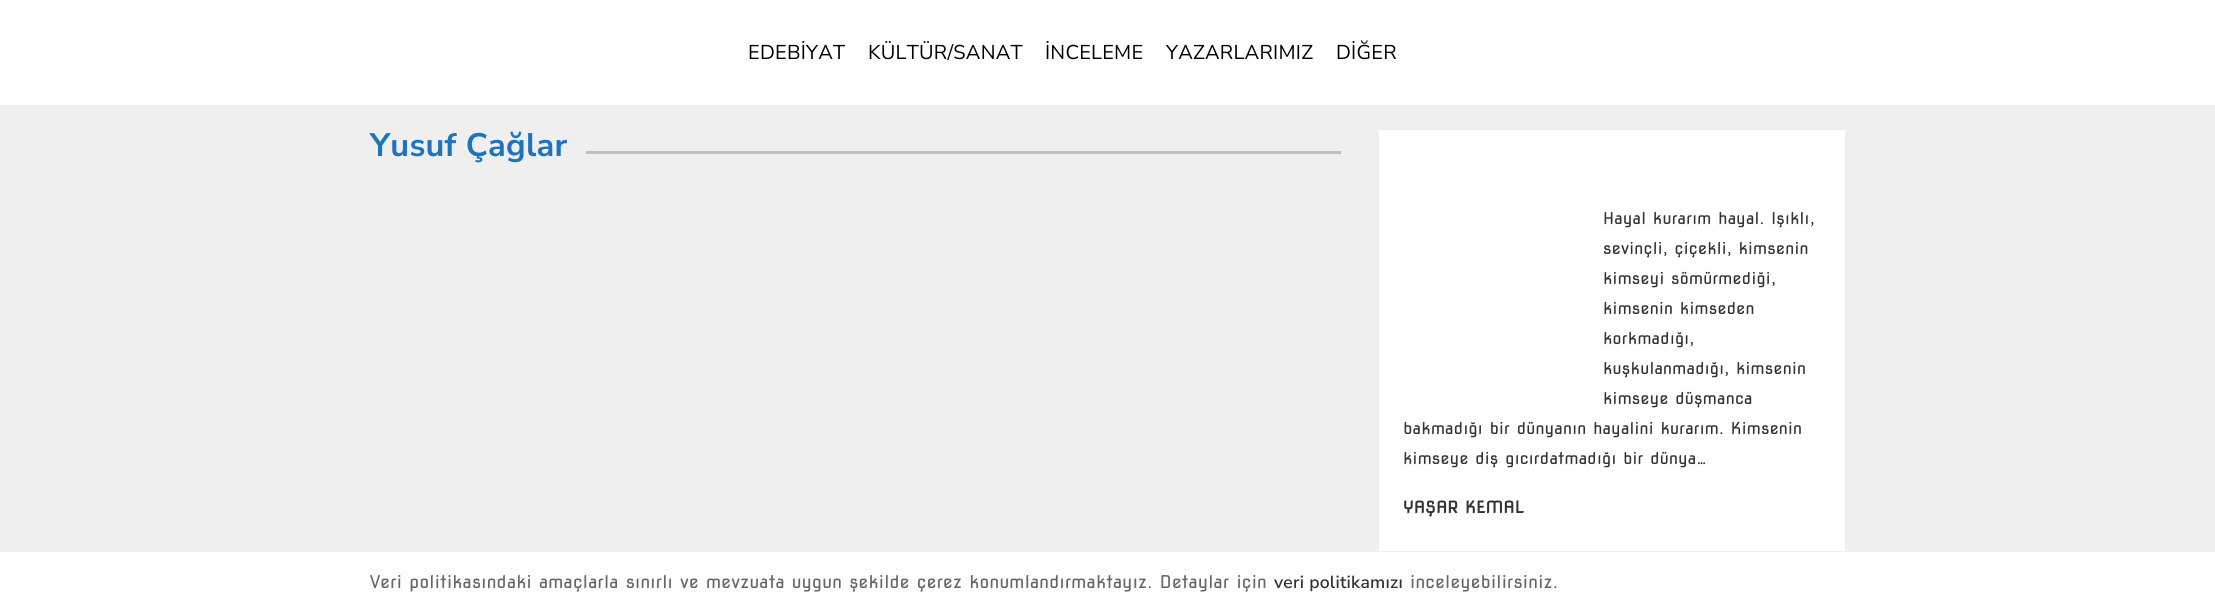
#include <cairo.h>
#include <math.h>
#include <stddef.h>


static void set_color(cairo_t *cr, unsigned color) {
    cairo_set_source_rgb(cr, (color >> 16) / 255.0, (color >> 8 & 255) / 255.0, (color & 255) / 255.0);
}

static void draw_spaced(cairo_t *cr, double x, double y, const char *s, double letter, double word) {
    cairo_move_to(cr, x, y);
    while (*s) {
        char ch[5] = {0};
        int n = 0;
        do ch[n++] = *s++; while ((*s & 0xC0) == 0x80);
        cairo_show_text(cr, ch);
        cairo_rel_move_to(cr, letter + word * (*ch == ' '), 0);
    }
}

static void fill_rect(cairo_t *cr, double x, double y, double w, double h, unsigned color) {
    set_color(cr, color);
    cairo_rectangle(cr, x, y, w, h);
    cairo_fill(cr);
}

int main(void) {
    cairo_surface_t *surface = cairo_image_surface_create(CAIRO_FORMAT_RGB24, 2215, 609);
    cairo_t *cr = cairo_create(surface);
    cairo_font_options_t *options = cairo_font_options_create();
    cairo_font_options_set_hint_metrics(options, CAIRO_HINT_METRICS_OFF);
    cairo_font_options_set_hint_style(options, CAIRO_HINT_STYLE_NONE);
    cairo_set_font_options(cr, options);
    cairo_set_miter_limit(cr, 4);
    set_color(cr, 0xEFEFEF);
    cairo_paint(cr);
    fill_rect(cr, 0, 552, 2215, 57, 0xFDFDFD);
    fill_rect(cr, 0, 0, 2215, 105, 0xFFFFFF);
    cairo_select_font_face(cr, "Nunito Sans", CAIRO_FONT_SLANT_NORMAL, CAIRO_FONT_WEIGHT_NORMAL);
    cairo_set_font_size(cr, 20);
    set_color(cr, 0x000000);
    draw_spaced(cr, 748, 59, "EDEBİYAT", 0.25, 0);
    draw_spaced(cr, 868, 59, "KÜLTÜR/SANAT", 0.25, 0);
    draw_spaced(cr, 1045, 59, "İNCELEME", 0.25, 0);
    draw_spaced(cr, 1166, 59, "YAZARLARIMIZ", 0.25, 0);
    draw_spaced(cr, 1336, 59, "DİĞER", 0.25, 0);
    cairo_select_font_face(cr, "Nunito Sans", CAIRO_FONT_SLANT_NORMAL, CAIRO_FONT_WEIGHT_BOLD);
    cairo_set_font_size(cr, 32.5);
    set_color(cr, 0x1E73BE);
    draw_spaced(cr, 370, 156, "Yusuf Çağlar", 0.25, 0);
    fill_rect(cr, 586, 151, 755, 3, 0xBFBFBF);
    fill_rect(cr, 1379, 130, 466, 421, 0xFFFFFF);
    cairo_select_font_face(cr, "Nova Square", CAIRO_FONT_SLANT_NORMAL, CAIRO_FONT_WEIGHT_NORMAL);
    cairo_set_font_size(cr, 16.25);
    set_color(cr, 0x333333);
    draw_spaced(cr, 1603, 224, "Hayal kurarım hayal. Işıklı,", 0.25, 0);
    draw_spaced(cr, 1603, 254, "sevinçli, çiçekli, kimsenin", 0.25, 0);
    draw_spaced(cr, 1603, 284, "kimseyi sömürmediği,", 0.25, 0);
    draw_spaced(cr, 1603, 314, "kimsenin kimseden", 0.25, 0);
    draw_spaced(cr, 1603, 344, "korkmadığı,", 0.25, 0);
    draw_spaced(cr, 1603, 374, "kuşkulanmadığı, kimsenin", 0.25, 0);
    draw_spaced(cr, 1603, 404, "kimseye düşmanca", 0.25, 0);
    draw_spaced(cr, 1403, 434, "bakmadığı bir dünyanın hayalini kurarım. Kimsenin", 0.25, 0);
    draw_spaced(cr, 1403, 464, "kimseye diş gıcırdatmadığı bir dünya…", 0.25, 0);
    cairo_select_font_face(cr, "Nova Square", CAIRO_FONT_SLANT_NORMAL, CAIRO_FONT_WEIGHT_BOLD);
    draw_spaced(cr, 1403, 513, "YAŞAR KEMAL", 0.25, 0);
    cairo_select_font_face(cr, "Nova Square", CAIRO_FONT_SLANT_NORMAL, CAIRO_FONT_WEIGHT_NORMAL);
    cairo_set_font_size(cr, 17.5);
    set_color(cr, 0x666666);
    draw_spaced(cr, 370, 588, "Veri politikasındaki amaçlarla sınırlı ve mevzuata uygun şekilde çerez konumlandırmaktayız. Detaylar için", 0.25, 0);
    cairo_select_font_face(cr, "Nunito Sans SemiBold", CAIRO_FONT_SLANT_NORMAL, CAIRO_FONT_WEIGHT_NORMAL);
    set_color(cr, 0x333333);
    draw_spaced(cr, 1274, 588, "veri politikamızı", 0.25, 0);
    cairo_select_font_face(cr, "Nova Square", CAIRO_FONT_SLANT_NORMAL, CAIRO_FONT_WEIGHT_NORMAL);
    set_color(cr, 0x666666);
    draw_spaced(cr, 1410, 588, "inceleyebilirsiniz.", 0.25, 0);
    cairo_surface_write_to_png(surface, "output.png");
    cairo_font_options_destroy(options);
    cairo_destroy(cr);
    cairo_surface_destroy(surface);
    return 0;
}
